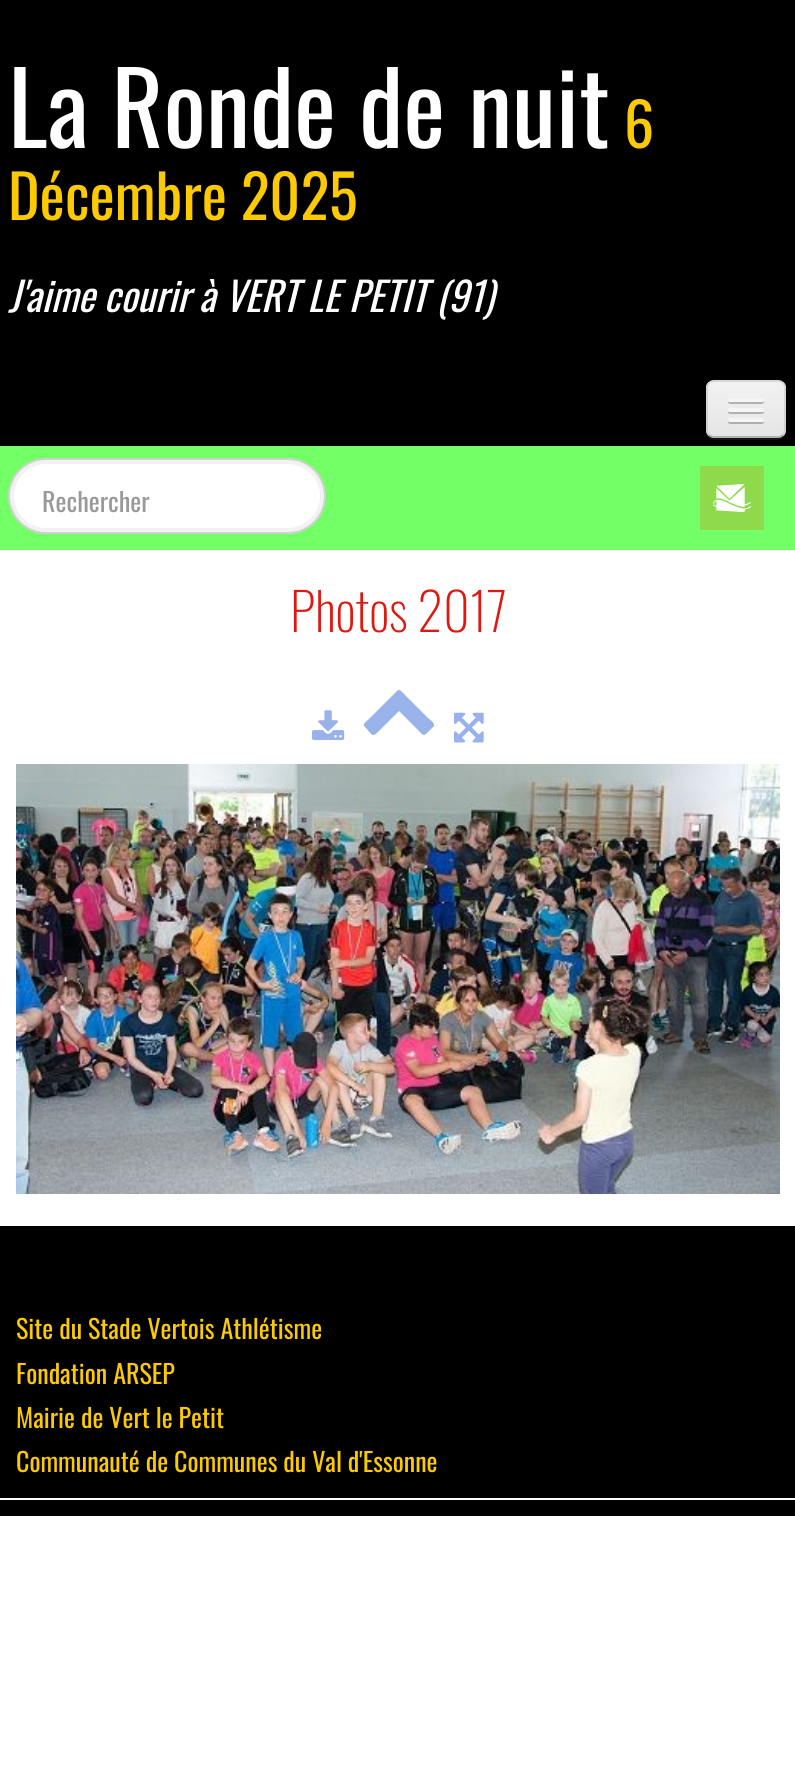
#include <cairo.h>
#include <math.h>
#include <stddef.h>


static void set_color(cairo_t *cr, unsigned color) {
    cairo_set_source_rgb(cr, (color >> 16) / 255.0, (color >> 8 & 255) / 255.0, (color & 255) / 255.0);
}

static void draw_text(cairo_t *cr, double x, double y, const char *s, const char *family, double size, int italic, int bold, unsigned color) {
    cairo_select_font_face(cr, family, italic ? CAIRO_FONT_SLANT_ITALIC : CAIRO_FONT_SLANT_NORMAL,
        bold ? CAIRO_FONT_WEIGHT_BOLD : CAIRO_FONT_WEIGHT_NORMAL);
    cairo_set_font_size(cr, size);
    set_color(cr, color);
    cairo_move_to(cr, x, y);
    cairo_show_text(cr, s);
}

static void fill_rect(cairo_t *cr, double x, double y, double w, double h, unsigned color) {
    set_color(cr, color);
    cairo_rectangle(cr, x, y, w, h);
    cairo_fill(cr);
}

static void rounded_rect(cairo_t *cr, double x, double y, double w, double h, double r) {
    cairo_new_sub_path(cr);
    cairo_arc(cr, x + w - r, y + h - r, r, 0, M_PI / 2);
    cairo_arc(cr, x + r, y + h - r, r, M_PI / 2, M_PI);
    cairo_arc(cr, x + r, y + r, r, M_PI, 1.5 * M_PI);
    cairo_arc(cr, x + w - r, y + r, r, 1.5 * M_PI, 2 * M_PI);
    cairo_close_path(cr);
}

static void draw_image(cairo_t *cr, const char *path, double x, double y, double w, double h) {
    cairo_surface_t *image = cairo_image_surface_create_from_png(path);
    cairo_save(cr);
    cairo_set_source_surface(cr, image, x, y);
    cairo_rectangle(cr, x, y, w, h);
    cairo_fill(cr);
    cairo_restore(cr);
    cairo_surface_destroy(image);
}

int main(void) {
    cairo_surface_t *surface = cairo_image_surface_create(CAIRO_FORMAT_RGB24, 795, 1780);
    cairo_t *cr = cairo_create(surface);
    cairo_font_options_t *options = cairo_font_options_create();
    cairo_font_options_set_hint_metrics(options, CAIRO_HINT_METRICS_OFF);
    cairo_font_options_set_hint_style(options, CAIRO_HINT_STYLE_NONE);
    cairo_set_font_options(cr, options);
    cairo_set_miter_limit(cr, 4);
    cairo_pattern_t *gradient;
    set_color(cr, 0xFFFFFF);
    cairo_paint(cr);
    fill_rect(cr, 0, 0, 795, 446, 0x000000);
    draw_text(cr, 8, 148, "La Ronde de nuit", "Oswald", 100, 0, 0, 0xFFFFFF);
    draw_text(cr, 624, 148, "6", "Oswald", 60, 0, 0, 0xFCCA03);
    draw_text(cr, 8, 220, "Décembre 2025", "Oswald", 60, 0, 0, 0xFCCA03);
    draw_text(cr, 8, 312, "J'aime courir à VERT LE PETIT (91)", "Oswald", 40, 1, 0, 0xFFFFFF);
    set_color(cr, 0x131313);
    cairo_new_path(cr);
    cairo_move_to(cr, 706, 430);
    cairo_curve_to(cr, 706, 442, 715, 440, 725, 440);
    cairo_line_to(cr, 767, 440);
    cairo_curve_to(cr, 777, 440, 786, 442, 786, 430);
    cairo_curve_to(cr, 786, 434, 782, 438, 778, 438);
    cairo_line_to(cr, 714, 438);
    cairo_curve_to(cr, 710, 438, 706, 434, 706, 430);
    cairo_close_path(cr);
    cairo_fill(cr);
    set_color(cr, 0xEDEDED);
    rounded_rect(cr, 706, 380, 80, 58, 8);
    cairo_fill(cr);
    cairo_save(cr);
    rounded_rect(cr, 706, 380, 80, 58, 8);
    cairo_clip(cr);
    gradient = cairo_pattern_create_linear(746, 382, 746, 436);
    cairo_pattern_add_color_stop_rgba(gradient, 0, 0.949, 0.949, 0.949, 1);
    cairo_pattern_add_color_stop_rgba(gradient, 1, 0.898, 0.898, 0.898, 1);
    cairo_set_source(cr, gradient);
    cairo_pattern_destroy(gradient);
    cairo_rectangle(cr, 706, 382, 80, 54);
    cairo_fill(cr);
    cairo_restore(cr);
    cairo_new_path(cr);
    cairo_move_to(cr, 783, 435);
    cairo_curve_to(cr, 781.5, 436.5, 780, 437, 778, 437);
    cairo_line_to(cr, 714, 437);
    cairo_curve_to(cr, 712, 437, 710.5, 436.5, 709, 435);
    cairo_set_source_rgba(cr, 0, 0, 0, 0.25);
    cairo_stroke(cr);
    cairo_new_path(cr);
    cairo_move_to(cr, 709, 435);
    cairo_curve_to(cr, 707.5, 433.5, 707, 432, 707, 430);
    cairo_line_to(cr, 707, 388);
    cairo_curve_to(cr, 707, 386, 707.5, 384.5, 709, 383);
    cairo_curve_to(cr, 710.5, 381.5, 712, 381, 714, 381);
    cairo_line_to(cr, 778, 381);
    cairo_curve_to(cr, 780, 381, 781.5, 381.5, 783, 383);
    cairo_curve_to(cr, 784.5, 384.5, 785, 386, 785, 388);
    cairo_line_to(cr, 785, 430);
    cairo_curve_to(cr, 785, 432, 784.5, 433.5, 783, 435);
    cairo_set_source_rgba(cr, 0, 0, 0, 0.1);
    cairo_stroke(cr);
    set_color(cr, 0xB2B2B2);
    cairo_new_path(cr);
    cairo_move_to(cr, 728.5, 401);
    cairo_curve_to(cr, 726, 405, 735, 404, 735.5, 404);
    cairo_line_to(cr, 756.5, 404);
    cairo_curve_to(cr, 757, 404, 766, 405, 763.5, 401);
    cairo_curve_to(cr, 763.5, 401.5, 762.5, 402, 762, 402);
    cairo_line_to(cr, 730, 402);
    cairo_curve_to(cr, 729.5, 402, 728.5, 401.5, 728.5, 401);
    cairo_close_path(cr);
    cairo_fill(cr);
    set_color(cr, 0xF5F5F5);
    rounded_rect(cr, 728, 398, 36, 4, 2);
    cairo_fill(cr);
    set_color(cr, 0xB0B0B0);
    cairo_new_path(cr);
    cairo_move_to(cr, 728.5, 411);
    cairo_curve_to(cr, 726, 415, 735, 414, 735.5, 414);
    cairo_line_to(cr, 756.5, 414);
    cairo_curve_to(cr, 757, 414, 766, 415, 763.5, 411);
    cairo_curve_to(cr, 763.5, 411.5, 762.5, 412, 762, 412);
    cairo_line_to(cr, 730, 412);
    cairo_curve_to(cr, 729.5, 412, 728.5, 411.5, 728.5, 411);
    cairo_close_path(cr);
    cairo_fill(cr);
    set_color(cr, 0xF5F5F5);
    rounded_rect(cr, 728, 408, 36, 4, 2);
    cairo_fill(cr);
    set_color(cr, 0xAEAEAE);
    cairo_new_path(cr);
    cairo_move_to(cr, 728.5, 421);
    cairo_curve_to(cr, 726, 425, 735, 424, 735.5, 424);
    cairo_line_to(cr, 756.5, 424);
    cairo_curve_to(cr, 757, 424, 766, 425, 763.5, 421);
    cairo_curve_to(cr, 763.5, 421.5, 762.5, 422, 762, 422);
    cairo_line_to(cr, 730, 422);
    cairo_curve_to(cr, 729.5, 422, 728.5, 421.5, 728.5, 421);
    cairo_close_path(cr);
    cairo_fill(cr);
    set_color(cr, 0xF5F5F5);
    rounded_rect(cr, 728, 418, 36, 4, 2);
    cairo_fill(cr);
    fill_rect(cr, 0, 446, 795, 104, 0x73FF66);
    set_color(cr, 0xF2F2F2);
    rounded_rect(cr, 9, 459, 316, 74, 37);
    cairo_fill_preserve(cr);
    set_color(cr, 0xD1D1D1);
    cairo_stroke(cr);
    set_color(cr, 0xFFFFFF);
    rounded_rect(cr, 14, 464, 306, 64, 32);
    cairo_fill(cr);
    draw_text(cr, 42, 512, "Rechercher", "Oswald", 26, 0, 0, 0x999999);
    draw_image(cr, "assets/img1.png", 700, 466, 64, 64);
    draw_text(cr, 290, 632, "Photos 2017", "Oswald ExtraLight", 52, 0, 0, 0xDE1912);
    draw_image(cr, "assets/img2.png", 312, 710, 33, 30);
    set_color(cr, 0x99B3EA);
    cairo_new_path(cr);
    cairo_move_to(cr, 433, 727);
    cairo_line_to(cr, 427, 733);
    cairo_curve_to(cr, 423, 737, 422, 734, 418, 730);
    cairo_line_to(cr, 399, 711);
    cairo_line_to(cr, 380, 730);
    cairo_curve_to(cr, 372, 738, 373, 736, 366, 728);
    cairo_curve_to(cr, 361, 724, 366, 722, 370, 718);
    cairo_line_to(cr, 392, 696);
    cairo_curve_to(cr, 400, 688, 398, 688, 406, 696);
    cairo_line_to(cr, 428, 718);
    cairo_curve_to(cr, 429, 719, 437, 724, 433, 727);
    cairo_close_path(cr);
    cairo_fill(cr);
    draw_image(cr, "assets/img3.png", 454, 712, 30, 31);
    draw_image(cr, "assets/img4.png", 16, 764, 764, 430);
    fill_rect(cr, 0, 1226, 795, 290, 0x000000);
    draw_text(cr, 16, 1339, "Site du Stade Vertois Athlétisme", "Oswald", 26, 0, 0, 0xFCCA03);
    draw_text(cr, 16, 1384, "Fondation ARSEP", "Oswald", 26, 0, 0, 0xFCCA03);
    draw_text(cr, 16, 1428, "Mairie de Vert le Petit", "Oswald", 26, 0, 0, 0xFCCA03);
    draw_text(cr, 16, 1472, "Communauté de Communes du Val d'Essonne", "Oswald", 26, 0, 0, 0xFCCA03);
    fill_rect(cr, 0, 1498, 795, 2, 0xFFFFFF);
    cairo_surface_write_to_png(surface, "output.png");
    cairo_font_options_destroy(options);
    cairo_destroy(cr);
    cairo_surface_destroy(surface);
    return 0;
}
